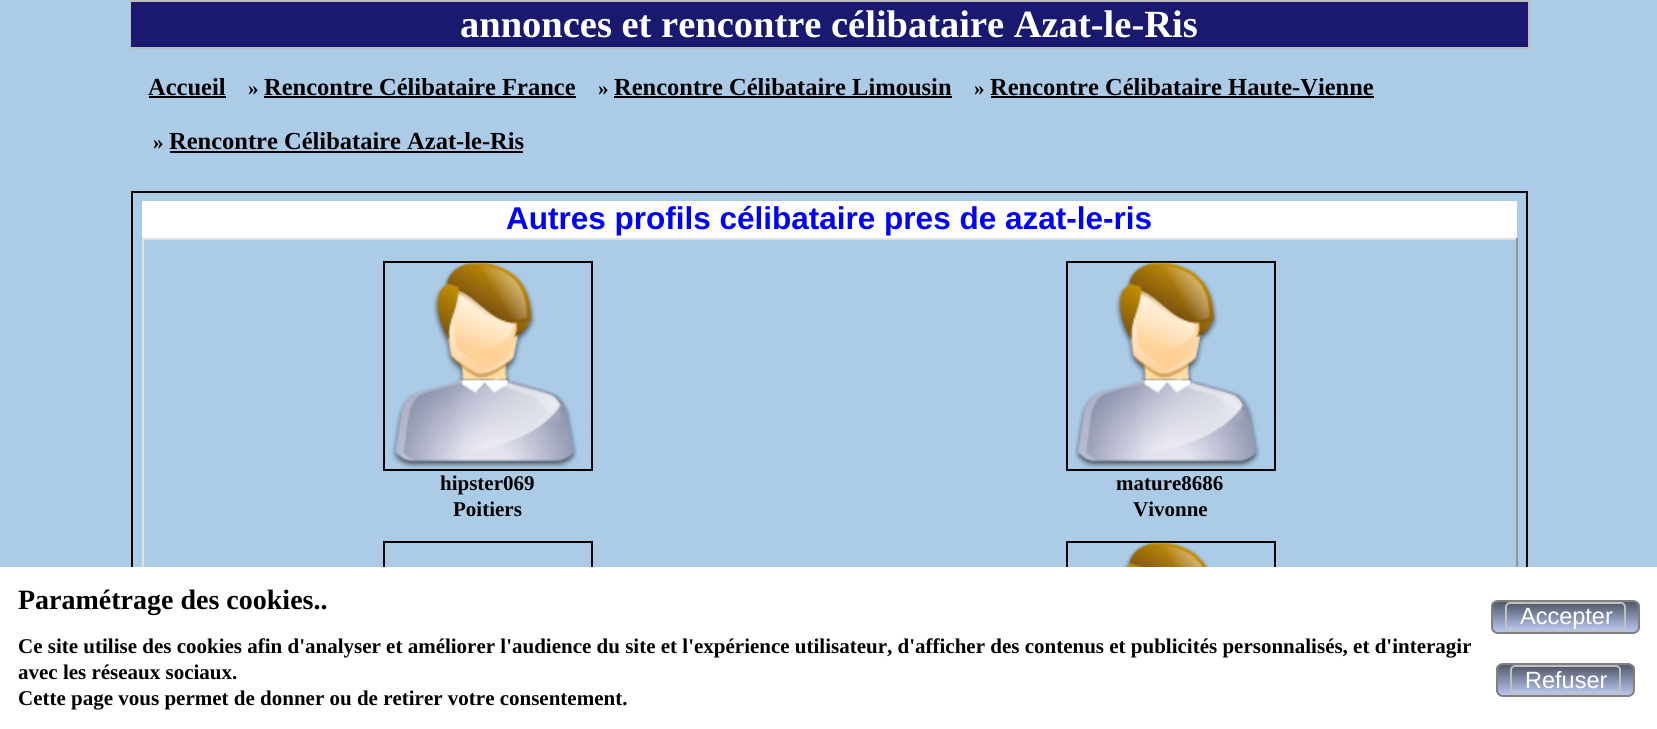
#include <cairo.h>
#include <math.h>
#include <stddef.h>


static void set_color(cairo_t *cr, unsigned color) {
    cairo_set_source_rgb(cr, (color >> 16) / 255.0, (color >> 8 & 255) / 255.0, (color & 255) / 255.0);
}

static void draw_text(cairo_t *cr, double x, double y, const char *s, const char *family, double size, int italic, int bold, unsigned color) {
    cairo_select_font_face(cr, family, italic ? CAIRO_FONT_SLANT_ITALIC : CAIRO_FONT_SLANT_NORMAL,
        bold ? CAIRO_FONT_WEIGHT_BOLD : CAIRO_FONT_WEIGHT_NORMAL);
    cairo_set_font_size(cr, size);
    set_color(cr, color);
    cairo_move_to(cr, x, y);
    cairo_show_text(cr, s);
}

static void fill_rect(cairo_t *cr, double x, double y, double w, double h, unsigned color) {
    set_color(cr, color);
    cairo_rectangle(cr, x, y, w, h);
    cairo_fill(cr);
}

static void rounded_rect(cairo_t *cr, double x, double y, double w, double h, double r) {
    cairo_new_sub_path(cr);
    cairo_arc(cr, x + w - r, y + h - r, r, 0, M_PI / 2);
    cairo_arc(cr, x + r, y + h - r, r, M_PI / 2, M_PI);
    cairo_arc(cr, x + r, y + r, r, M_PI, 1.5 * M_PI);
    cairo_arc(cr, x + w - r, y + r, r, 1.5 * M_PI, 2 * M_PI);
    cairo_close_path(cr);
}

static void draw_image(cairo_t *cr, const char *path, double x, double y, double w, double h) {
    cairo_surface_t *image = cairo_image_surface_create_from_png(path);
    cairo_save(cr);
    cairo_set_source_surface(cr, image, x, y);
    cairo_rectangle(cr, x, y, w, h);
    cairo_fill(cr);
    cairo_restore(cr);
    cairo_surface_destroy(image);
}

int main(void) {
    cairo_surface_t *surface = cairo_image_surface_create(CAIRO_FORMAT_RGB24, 1657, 729);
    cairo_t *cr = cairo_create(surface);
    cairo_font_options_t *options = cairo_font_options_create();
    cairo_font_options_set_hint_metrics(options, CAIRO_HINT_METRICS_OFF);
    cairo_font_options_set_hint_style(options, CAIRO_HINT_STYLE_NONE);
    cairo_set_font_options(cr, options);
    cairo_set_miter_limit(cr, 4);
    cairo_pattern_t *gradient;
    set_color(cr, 0xABCBE7);
    cairo_paint(cr);
    cairo_rectangle(cr, 131, 1, 1398, 47);
    set_color(cr, 0xBDBDBD);
    cairo_stroke(cr);
    fill_rect(cr, 131, 2, 1397, 45, 0x191970);
    draw_text(cr, 460, 37, "annonces et rencontre célibataire Azat-le-Ris", "Liberation Serif", 38.5, 0, 1, 0xFFFFFF);
    draw_text(cr, 148, 95, "Accueil", "Liberation Serif", 24.5, 0, 1, 0x000000);
    fill_rect(cr, 149, 96, 77, 2, 0x000000);
    draw_text(cr, 248, 95, "»", "Liberation Serif", 21, 0, 1, 0x000000);
    draw_text(cr, 264, 95, "Rencontre Célibataire France", "Liberation Serif", 24.5, 0, 1, 0x000000);
    fill_rect(cr, 264, 96, 312, 2, 0x000000);
    draw_text(cr, 598, 95, "»", "Liberation Serif", 21, 0, 1, 0x000000);
    draw_text(cr, 614, 95, "Rencontre Célibataire Limousin", "Liberation Serif", 24.5, 0, 1, 0x000000);
    fill_rect(cr, 614, 96, 338, 2, 0x000000);
    draw_text(cr, 974, 95, "»", "Liberation Serif", 21, 0, 1, 0x000000);
    draw_text(cr, 990, 95, "Rencontre Célibataire Haute-Vienne", "Liberation Serif", 24.5, 0, 1, 0x000000);
    fill_rect(cr, 991, 96, 383, 2, 0x000000);
    draw_text(cr, 153, 149, "»", "Liberation Serif", 21, 0, 1, 0x000000);
    draw_text(cr, 169, 149, "Rencontre Célibataire Azat-le-Ris", "Liberation Serif", 24.5, 0, 1, 0x000000);
    fill_rect(cr, 170, 151, 353, 2, 0x000000);
    cairo_rectangle(cr, 132, 192, 1395, 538);
    cairo_stroke(cr);
    fill_rect(cr, 142, 201, 1375, 37, 0xFFFFFF);
    draw_text(cr, 506, 229, "Autres profils célibataire pres de azat-le-ris", "Liberation Sans", 31.5, 0, 1, 0x0000FF);
    fill_rect(cr, 142, 238, 1375, 2, 0xDDE1E6);
    fill_rect(cr, 1516, 238, 2, 329, 0x939699);
    fill_rect(cr, 142, 238, 2, 329, 0xDDE1E6);
    cairo_rectangle(cr, 384, 262, 208, 208);
    set_color(cr, 0x000000);
    cairo_stroke(cr);
    draw_image(cr, "assets/img1.png", 391, 262, 187, 207);
    draw_text(cr, 440, 490, "hipster069", "Liberation Serif", 21, 0, 1, 0x000000);
    draw_text(cr, 453, 516, "Poitiers", "Liberation Serif", 21, 0, 1, 0x000000);
    cairo_rectangle(cr, 1067, 262, 208, 208);
    cairo_stroke(cr);
    draw_image(cr, "assets/img2.png", 1074, 262, 186, 207);
    draw_text(cr, 1116, 490, "mature8686", "Liberation Serif", 21, 0, 1, 0x000000);
    draw_text(cr, 1133, 516, "Vivonne", "Liberation Serif", 21, 0, 1, 0x000000);
    cairo_rectangle(cr, 384, 542, 208, 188);
    cairo_stroke(cr);
    cairo_rectangle(cr, 1067, 542, 208, 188);
    cairo_stroke(cr);
    draw_image(cr, "assets/img3.png", 1123, 542, 87, 25);
    fill_rect(cr, 0, 567, 1657, 162, 0xFFFFFF);
    draw_text(cr, 18, 609, "Paramétrage des cookies..", "Liberation Serif", 28, 0, 1, 0x000000);
    draw_text(cr, 18, 653, "Ce site utilise des cookies afin d'analyser et améliorer l'audience du site et l'expérience utilisateur, d'afficher des contenus et publicités personnalisés, et d'interagir", "Liberation Serif", 21, 0, 1, 0x000000);
    draw_text(cr, 18, 679, "avec les réseaux sociaux.", "Liberation Serif", 21, 0, 1, 0x000000);
    draw_text(cr, 18, 705, "Cette page vous permet de donner ou de retirer votre consentement.", "Liberation Serif", 21, 0, 1, 0x000000);
    cairo_save(cr);
    rounded_rect(cr, 1491, 600, 149, 34, 7);
    cairo_clip(cr);
    gradient = cairo_pattern_create_linear(1565, 602, 1565, 632);
    cairo_pattern_add_color_stop_rgba(gradient, 0, 0.325, 0.353, 0.424, 1);
    cairo_pattern_add_color_stop_rgba(gradient, 1, 0.714, 0.776, 0.929, 1);
    cairo_set_source(cr, gradient);
    cairo_pattern_destroy(gradient);
    cairo_rectangle(cr, 1491, 602, 149, 30);
    cairo_fill(cr);
    cairo_restore(cr);
    rounded_rect(cr, 1492, 601, 147, 32, 6);
    set_color(cr, 0x808080);
    cairo_stroke(cr);
    cairo_save(cr);
    rounded_rect(cr, 1505, 602, 121, 30, 5);
    cairo_clip(cr);
    gradient = cairo_pattern_create_linear(1565, 604, 1565, 630);
    cairo_pattern_add_color_stop_rgba(gradient, 0, 0.325, 0.353, 0.424, 1);
    cairo_pattern_add_color_stop_rgba(gradient, 1, 0.714, 0.776, 0.929, 1);
    cairo_set_source(cr, gradient);
    cairo_pattern_destroy(gradient);
    cairo_rectangle(cr, 1505, 604, 121, 26);
    cairo_fill(cr);
    cairo_restore(cr);
    rounded_rect(cr, 1506, 603, 119, 28, 4);
    set_color(cr, 0xC0C0C0);
    cairo_stroke(cr);
    draw_text(cr, 1520, 624, "Accepter", "Liberation Sans", 23.5, 0, 0, 0xFFFFFF);
    cairo_save(cr);
    rounded_rect(cr, 1496, 663, 139, 34, 7);
    cairo_clip(cr);
    gradient = cairo_pattern_create_linear(1565, 665, 1565, 695);
    cairo_pattern_add_color_stop_rgba(gradient, 0, 0.325, 0.353, 0.424, 1);
    cairo_pattern_add_color_stop_rgba(gradient, 1, 0.714, 0.776, 0.929, 1);
    cairo_set_source(cr, gradient);
    cairo_pattern_destroy(gradient);
    cairo_rectangle(cr, 1496, 665, 139, 30);
    cairo_fill(cr);
    cairo_restore(cr);
    rounded_rect(cr, 1497, 664, 137, 32, 6);
    set_color(cr, 0x808080);
    cairo_stroke(cr);
    cairo_save(cr);
    rounded_rect(cr, 1510, 665, 111, 30, 5);
    cairo_clip(cr);
    gradient = cairo_pattern_create_linear(1565, 667, 1565, 693);
    cairo_pattern_add_color_stop_rgba(gradient, 0, 0.325, 0.353, 0.424, 1);
    cairo_pattern_add_color_stop_rgba(gradient, 1, 0.714, 0.776, 0.929, 1);
    cairo_set_source(cr, gradient);
    cairo_pattern_destroy(gradient);
    cairo_rectangle(cr, 1510, 667, 111, 26);
    cairo_fill(cr);
    cairo_restore(cr);
    rounded_rect(cr, 1511, 666, 109, 28, 4);
    set_color(cr, 0xC0C0C0);
    cairo_stroke(cr);
    draw_text(cr, 1525, 688, "Refuser", "Liberation Sans", 23.5, 0, 0, 0xFFFFFF);
    cairo_surface_write_to_png(surface, "output.png");
    cairo_font_options_destroy(options);
    cairo_destroy(cr);
    cairo_surface_destroy(surface);
    return 0;
}
